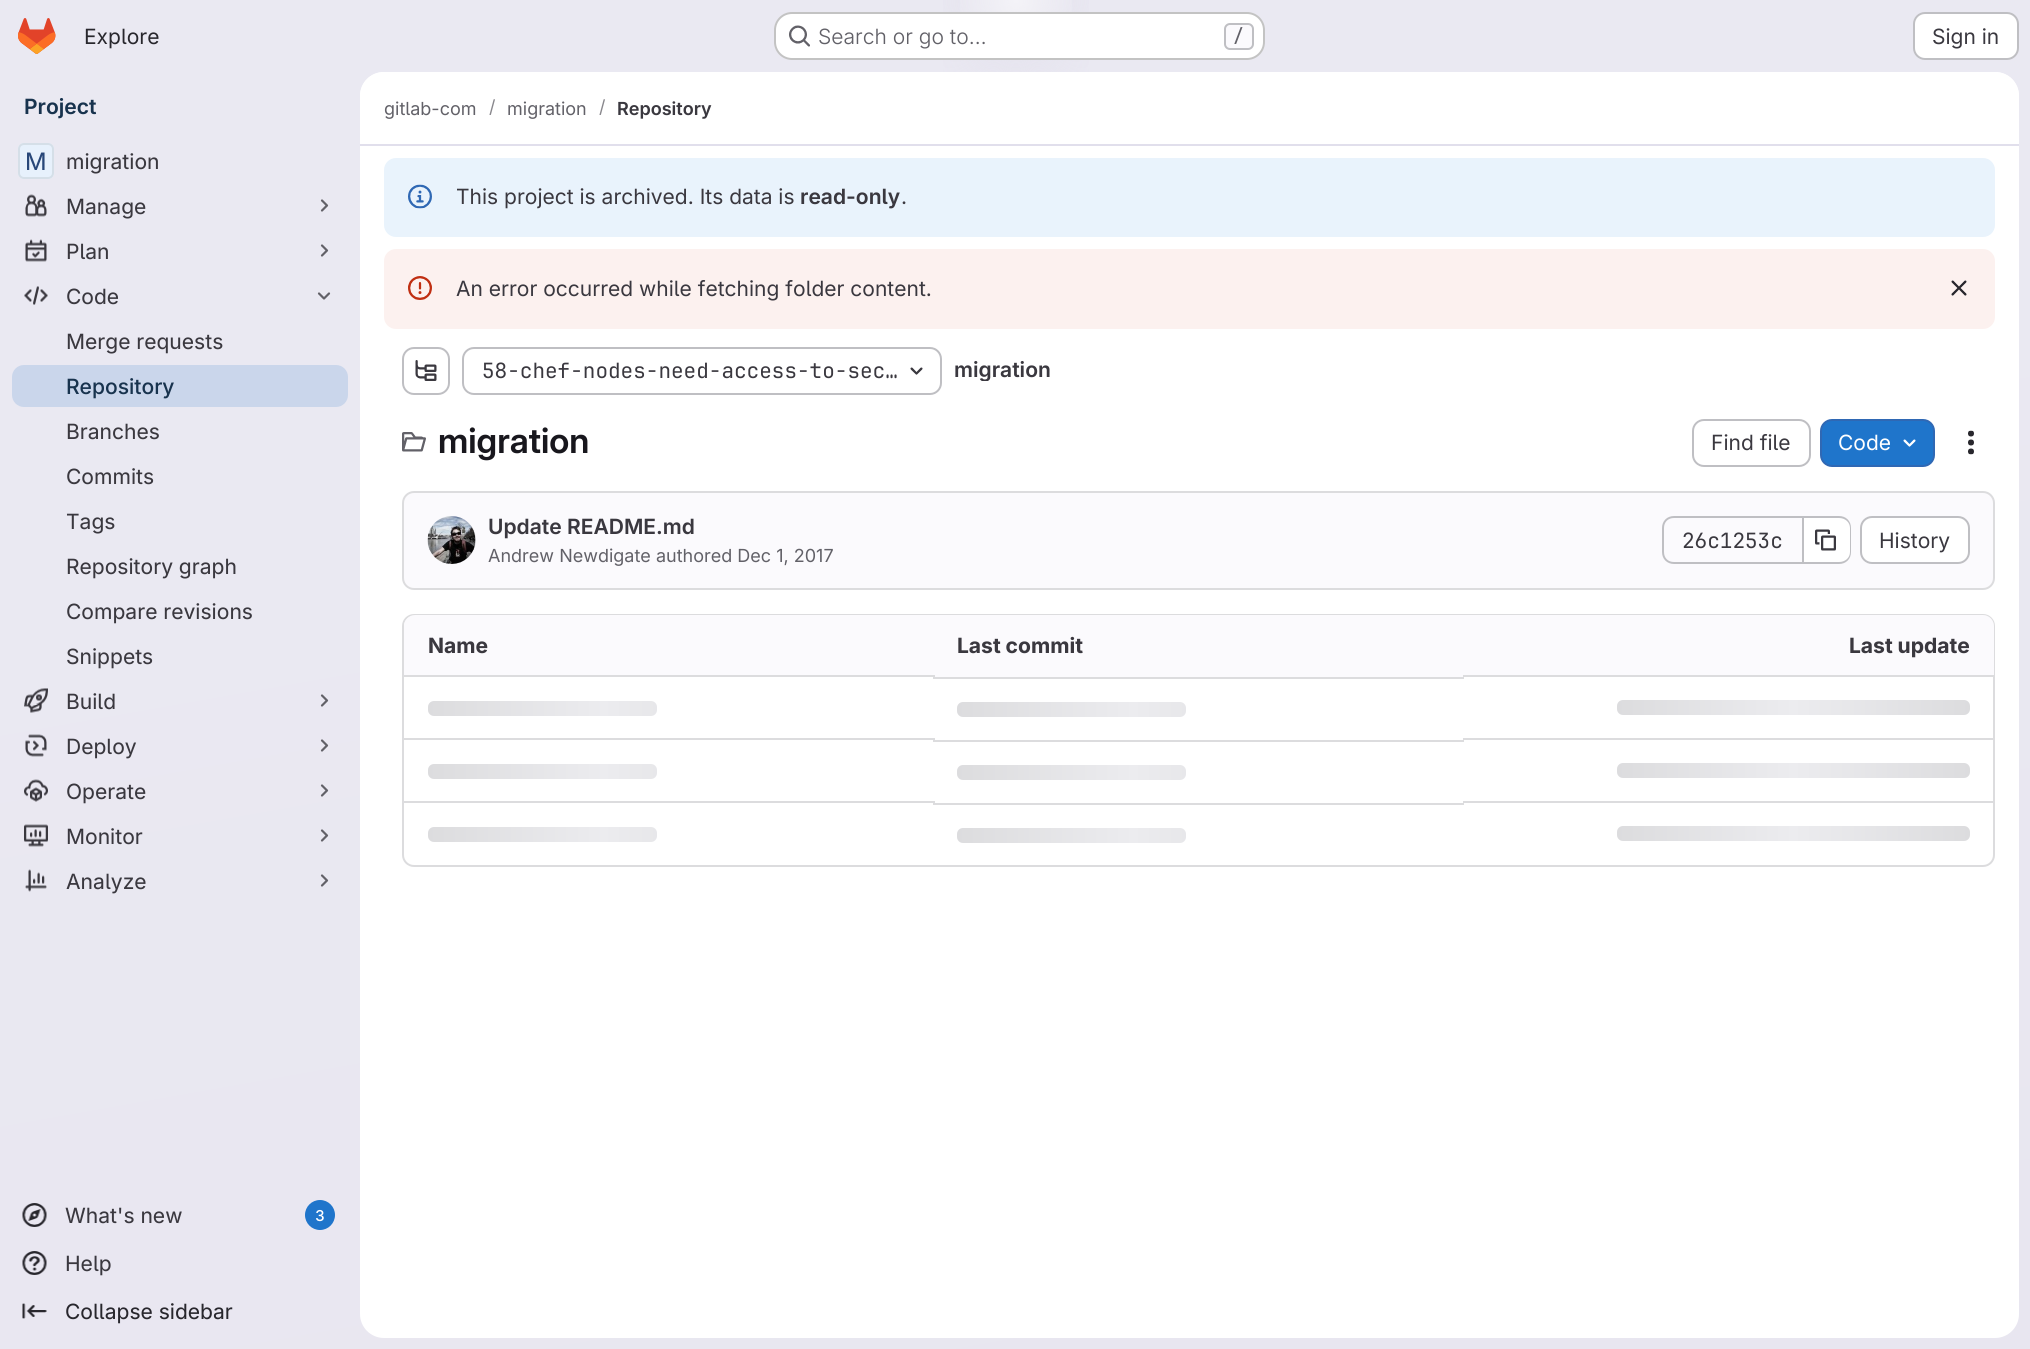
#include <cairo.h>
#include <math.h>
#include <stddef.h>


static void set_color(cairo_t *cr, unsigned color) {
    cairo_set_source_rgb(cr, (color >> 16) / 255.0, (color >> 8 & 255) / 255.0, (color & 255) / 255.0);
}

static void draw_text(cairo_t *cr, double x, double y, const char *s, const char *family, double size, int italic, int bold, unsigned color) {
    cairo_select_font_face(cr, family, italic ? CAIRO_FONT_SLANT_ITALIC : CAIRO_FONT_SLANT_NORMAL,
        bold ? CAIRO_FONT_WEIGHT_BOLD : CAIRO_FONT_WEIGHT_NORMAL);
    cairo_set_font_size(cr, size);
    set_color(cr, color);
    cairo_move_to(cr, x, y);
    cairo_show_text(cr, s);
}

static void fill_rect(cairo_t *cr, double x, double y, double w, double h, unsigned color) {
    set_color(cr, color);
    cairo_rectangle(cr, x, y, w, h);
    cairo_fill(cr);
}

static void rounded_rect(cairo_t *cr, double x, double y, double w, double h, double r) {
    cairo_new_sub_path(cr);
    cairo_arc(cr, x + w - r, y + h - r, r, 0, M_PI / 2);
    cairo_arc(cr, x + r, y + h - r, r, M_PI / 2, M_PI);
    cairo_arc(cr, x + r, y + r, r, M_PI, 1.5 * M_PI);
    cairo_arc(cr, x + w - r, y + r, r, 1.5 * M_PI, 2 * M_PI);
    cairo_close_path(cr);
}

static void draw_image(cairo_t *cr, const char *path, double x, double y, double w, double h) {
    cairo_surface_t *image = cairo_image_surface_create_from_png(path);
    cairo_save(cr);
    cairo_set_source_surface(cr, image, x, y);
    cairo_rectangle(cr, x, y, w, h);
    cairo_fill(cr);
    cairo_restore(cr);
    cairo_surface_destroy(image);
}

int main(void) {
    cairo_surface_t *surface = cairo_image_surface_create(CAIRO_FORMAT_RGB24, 2030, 1349);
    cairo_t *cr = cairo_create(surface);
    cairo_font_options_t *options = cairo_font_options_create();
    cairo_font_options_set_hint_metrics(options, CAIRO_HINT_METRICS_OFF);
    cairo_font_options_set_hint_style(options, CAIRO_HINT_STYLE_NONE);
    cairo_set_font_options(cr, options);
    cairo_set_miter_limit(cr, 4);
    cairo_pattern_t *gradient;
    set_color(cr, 0xFFFFFF);
    cairo_paint(cr);
    gradient = cairo_pattern_create_linear(1162, 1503, 869, -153);
    cairo_pattern_add_color_stop_rgba(gradient, 0, 0.91, 0.902, 0.941, 1);
    cairo_pattern_add_color_stop_rgba(gradient, 0.7, 0.918, 0.914, 0.949, 1);
    cairo_set_source(cr, gradient);
    cairo_pattern_destroy(gradient);
    cairo_rectangle(cr, 0, 0, 2030, 1349);
    cairo_fill(cr);
    gradient = cairo_pattern_create_radial(0, 0, 0, 0, 0, 1);
    cairo_pattern_set_matrix(gradient, &(cairo_matrix_t){1.0 / 1016, 0, 0, 1.0 / 1350, -1.0 * 1016 / 1016, -1.0 * 0 / 1350});
    cairo_pattern_add_color_stop_rgba(gradient, 0, 0.894, 0.886, 0.929, 1);
    cairo_pattern_add_color_stop_rgba(gradient, 0.1, 0.894, 0.886, 0.929, 0);
    cairo_set_source(cr, gradient);
    cairo_pattern_destroy(gradient);
    cairo_rectangle(cr, 943, 0, 146, 72);
    cairo_fill(cr);
    gradient = cairo_pattern_create_radial(0, 0, 0, 0, 0, 1);
    cairo_pattern_set_matrix(gradient, &(cairo_matrix_t){1.0 / 1016, 0, 0, 1.0 / 1350, -1.0 * 1016 / 1016, -1.0 * 0 / 1350});
    cairo_pattern_add_color_stop_rgba(gradient, 0, 0.894, 0.886, 0.925, 1);
    cairo_pattern_add_color_stop_rgba(gradient, 0.07, 0.894, 0.886, 0.925, 0);
    cairo_set_source(cr, gradient);
    cairo_pattern_destroy(gradient);
    cairo_rectangle(cr, 989, 13, 41, 12);
    cairo_fill(cr);
    gradient = cairo_pattern_create_radial(1016, 0, 0, 1016, 0, 1689);
    cairo_pattern_add_color_stop_rgba(gradient, 0, 1, 1, 1, 0.6);
    cairo_pattern_add_color_stop_rgba(gradient, 0.04, 1, 1, 1, 0);
    cairo_set_source(cr, gradient);
    cairo_pattern_destroy(gradient);
    cairo_rectangle(cr, 960, 0, 112, 57);
    cairo_fill(cr);
    draw_image(cr, "assets/img1.png", 18, 18, 38, 36);
    draw_text(cr, 84, 44, "Explore", "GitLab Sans", 21, 0, 0, 0x28272D);
    set_color(cr, 0xFFFFFF);
    rounded_rect(cr, 774, 12, 491, 48, 18);
    cairo_fill(cr);
    rounded_rect(cr, 775, 13, 489, 46, 17);
    cairo_set_source_rgba(cr, 0.02, 0.02, 0.024, 0.24);
    cairo_stroke(cr);
    draw_image(cr, "assets/img2.png", 789, 25, 21, 22);
    draw_text(cr, 818, 44, "Search or go to…", "GitLab Sans Light", 21, 0, 0, 0x626168);
    set_color(cr, 0xFBFAFD);
    rounded_rect(cr, 1225, 24, 28, 25, 5);
    cairo_fill_preserve(cr);
    set_color(cr, 0xBFBFC3);
    cairo_stroke(cr);
    draw_text(cr, 1233, 42, "/", "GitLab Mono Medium", 18, 0, 0, 0x626168);
    set_color(cr, 0xFFFFFF);
    rounded_rect(cr, 1914, 13, 104, 46, 11);
    cairo_fill_preserve(cr);
    set_color(cr, 0xBFBFC3);
    cairo_stroke(cr);
    draw_text(cr, 1932, 44, "Sign in", "GitLab Sans", 21, 0, 0, 0x3A383F);
    draw_text(cr, 24, 114, "Project", "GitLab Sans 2 SemiBold", 21, 0, 0, 0x18334E);
    set_color(cr, 0xFFFFFF);
    rounded_rect(cr, 18, 143, 36, 36, 6);
    cairo_fill(cr);
    cairo_set_source_rgba(cr, 0.616, 0.78, 0.945, 0.24);
    rounded_rect(cr, 18, 143, 36, 36, 6);
    cairo_fill(cr);
    rounded_rect(cr, 19, 144, 34, 34, 5);
    set_color(cr, 0xD5DFE8);
    cairo_stroke(cr);
    draw_text(cr, 25, 170, "M", "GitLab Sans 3", 24, 0, 0, 0x284779);
    draw_text(cr, 66, 169, "migration", "GitLab Sans 2", 21, 0, 0, 0x3A383F);
    draw_image(cr, "assets/img3.png", 25, 194, 22, 23);
    draw_text(cr, 66, 214, "Manage", "GitLab Sans 2", 21, 0, 0, 0x3A383F);
    cairo_new_path(cr);
    cairo_move_to(cr, 322, 200.5);
    cairo_line_to(cr, 327, 205.5);
    cairo_line_to(cr, 322, 210.5);
    set_color(cr, 0x626168);
    cairo_set_line_width(cr, 2.2);
    cairo_set_line_cap(cr, CAIRO_LINE_CAP_ROUND);
    cairo_set_line_join(cr, CAIRO_LINE_JOIN_ROUND);
    cairo_stroke(cr);
    draw_image(cr, "assets/img4.png", 25, 239, 22, 23);
    draw_text(cr, 66, 259, "Plan", "GitLab Sans 2", 21, 0, 0, 0x3A383F);
    cairo_new_path(cr);
    cairo_move_to(cr, 322, 245.5);
    cairo_line_to(cr, 327, 250.5);
    cairo_line_to(cr, 322, 255.5);
    set_color(cr, 0x626168);
    cairo_stroke(cr);
    draw_image(cr, "assets/img5.png", 24, 286, 24, 19);
    draw_text(cr, 66, 304, "Code", "GitLab Sans 2", 21, 0, 0, 0x3A383F);
    cairo_new_path(cr);
    cairo_move_to(cr, 329, 293.5);
    cairo_line_to(cr, 324, 298.5);
    cairo_line_to(cr, 319, 293.5);
    set_color(cr, 0x626168);
    cairo_stroke(cr);
    draw_text(cr, 66, 349, "Merge requests", "GitLab Sans 2", 21, 0, 0, 0x3A383F);
    set_color(cr, 0xCAD6EB);
    rounded_rect(cr, 12, 365, 336, 42, 12);
    cairo_fill(cr);
    draw_text(cr, 66, 394, "Repository", "GitLab Sans Medium", 21, 0, 0, 0x18334E);
    draw_text(cr, 66, 439, "Branches", "GitLab Sans 2", 21, 0, 0, 0x3A383F);
    draw_text(cr, 66, 484, "Commits", "GitLab Sans 2", 21, 0, 0, 0x3A383F);
    draw_text(cr, 66, 529, "Tags", "GitLab Sans 2", 21, 0, 0, 0x3A383F);
    draw_text(cr, 66, 574, "Repository graph", "GitLab Sans 2", 21, 0, 0, 0x3A383F);
    draw_text(cr, 66, 619, "Compare revisions", "GitLab Sans 2", 21, 0, 0, 0x3A383F);
    draw_text(cr, 66, 664, "Snippets", "GitLab Sans 2", 21, 0, 0, 0x3A383F);
    draw_image(cr, "assets/img6.png", 24, 688, 24, 25);
    draw_text(cr, 66, 709, "Build", "GitLab Sans 2", 21, 0, 0, 0x3A383F);
    cairo_new_path(cr);
    cairo_move_to(cr, 322, 695.5);
    cairo_line_to(cr, 327, 700.5);
    cairo_line_to(cr, 322, 705.5);
    set_color(cr, 0x626168);
    cairo_stroke(cr);
    draw_image(cr, "assets/img7.png", 25, 734, 22, 23);
    draw_text(cr, 66, 754, "Deploy", "GitLab Sans 2", 21, 0, 0, 0x3A383F);
    cairo_new_path(cr);
    cairo_move_to(cr, 322, 740.5);
    cairo_line_to(cr, 327, 745.5);
    cairo_line_to(cr, 322, 750.5);
    set_color(cr, 0x626168);
    cairo_stroke(cr);
    draw_image(cr, "assets/img8.png", 24, 779, 24, 23);
    draw_text(cr, 66, 799, "Operate", "GitLab Sans 2", 21, 0, 0, 0x3A383F);
    cairo_new_path(cr);
    cairo_move_to(cr, 322, 785.5);
    cairo_line_to(cr, 327, 790.5);
    cairo_line_to(cr, 322, 795.5);
    set_color(cr, 0x626168);
    cairo_stroke(cr);
    draw_image(cr, "assets/img9.png", 24, 824, 24, 23);
    draw_text(cr, 66, 844, "Monitor", "GitLab Sans 2", 21, 0, 0, 0x3A383F);
    cairo_new_path(cr);
    cairo_move_to(cr, 322, 830.5);
    cairo_line_to(cr, 327, 835.5);
    cairo_line_to(cr, 322, 840.5);
    set_color(cr, 0x626168);
    cairo_stroke(cr);
    draw_image(cr, "assets/img10.png", 25, 869, 22, 23);
    draw_text(cr, 66, 889, "Analyze", "GitLab Sans 2", 21, 0, 0, 0x3A383F);
    cairo_new_path(cr);
    cairo_move_to(cr, 322, 875.5);
    cairo_line_to(cr, 327, 880.5);
    cairo_line_to(cr, 322, 885.5);
    set_color(cr, 0x626168);
    cairo_stroke(cr);
    draw_image(cr, "assets/img11.png", 22, 1203, 25, 24);
    draw_text(cr, 65, 1223, "What's new", "GitLab Sans 2", 21, 0, 0, 0x3A383F);
    set_color(cr, 0x1F75CB);
    cairo_new_path(cr);
    cairo_arc(cr, 320, 1215, 15, 0, 2 * M_PI);
    cairo_fill(cr);
    draw_text(cr, 315, 1221, "3", "GitLab Sans Medium", 15, 0, 0, 0xFFFFFF);
    draw_image(cr, "assets/img12.png", 22, 1251, 25, 24);
    draw_text(cr, 65, 1271, "Help", "GitLab Sans 2", 21, 0, 0, 0x3A383F);
    draw_image(cr, "assets/img13.png", 22, 1303, 25, 16);
    draw_text(cr, 65, 1319, "Collapse sidebar", "GitLab Sans 2", 21, 0, 0, 0x28272D);
    set_color(cr, 0xFFFFFF);
    rounded_rect(cr, 360, 72, 1659, 1266, 24);
    cairo_fill(cr);
    cairo_new_path(cr);
    cairo_move_to(cr, 384, 72);
    cairo_line_to(cr, 1995, 72);
    cairo_curve_to(cr, 2008.5, 72, 2019, 82.5, 2019, 96);
    cairo_line_to(cr, 2019, 146);
    cairo_line_to(cr, 360, 146);
    cairo_line_to(cr, 360, 96);
    cairo_curve_to(cr, 360, 82.5, 370.5, 72, 384, 72);
    cairo_close_path(cr);
    cairo_fill(cr);
    fill_rect(cr, 360, 144, 1659, 2, 0xE1DFEC);
    draw_text(cr, 384, 115, "gitlab-com", "GitLab Sans", 18, 0, 0, 0x626168);
    draw_text(cr, 489, 113, "/", "GitLab Sans", 18, 0, 0, 0x89888D);
    draw_text(cr, 507, 115, "migration", "GitLab Sans", 18, 0, 0, 0x626168);
    draw_text(cr, 599, 113, "/", "GitLab Sans", 18, 0, 0, 0x89888D);
    draw_text(cr, 617, 115, "Repository", "GitLab Sans 2 SemiBold", 18, 0, 0, 0x3A383F);
    set_color(cr, 0xE9F3FC);
    rounded_rect(cr, 384, 158, 1611, 79, 12);
    cairo_fill(cr);
    draw_image(cr, "assets/img14.png", 408, 184, 24, 25);
    draw_text(cr, 456, 204, "This project is archived. Its data is", "GitLab Sans", 21, 0, 0, 0x3A383F);
    draw_text(cr, 800, 204, "read-only", "GitLab Sans 2 SemiBold", 21, 0, 0, 0x3A383F);
    draw_text(cr, 901, 204, ".", "GitLab Sans", 21, 0, 0, 0x3A383F);
    set_color(cr, 0xFCF1EF);
    rounded_rect(cr, 384, 249, 1611, 80, 12);
    cairo_fill(cr);
    draw_image(cr, "assets/img15.png", 408, 276, 24, 24);
    draw_text(cr, 456, 296, "An error occurred while fetching folder content.", "GitLab Sans", 21, 0, 0, 0x3A383F);
    draw_image(cr, "assets/img16.png", 1951, 280, 16, 16);
    rounded_rect(cr, 403, 348, 46, 46, 11);
    set_color(cr, 0xBFBFC3);
    cairo_set_line_width(cr, 2);
    cairo_set_line_cap(cr, CAIRO_LINE_CAP_BUTT);
    cairo_set_line_join(cr, CAIRO_LINE_JOIN_MITER);
    cairo_stroke(cr);
    draw_image(cr, "assets/img17.png", 415, 360, 22, 21);
    rounded_rect(cr, 463, 348, 478, 46, 11);
    cairo_stroke(cr);
    draw_text(cr, 482, 378, "58-chef-nodes-need-access-to-sec…", "GitLab Mono", 21, 0, 0, 0x3A383F);
    draw_image(cr, "assets/img18.png", 910, 367, 13, 8);
    cairo_save(cr);
    rounded_rect(cr, 954, 356, 98, 25, 6);
    cairo_clip(cr);
    draw_text(cr, 954, 377, "migration", "GitLab Sans 2 SemiBold", 21, 0, 0, 0x3A383F);
    cairo_restore(cr);
    draw_image(cr, "assets/img19.png", 402, 432, 24, 20);
    draw_text(cr, 438, 453, "migration", "GitLab Sans SemiBold", 34.5, 0, 0, 0x18171D);
    rounded_rect(cr, 1693, 420, 117, 46, 11);
    set_color(cr, 0xBFBFC3);
    cairo_stroke(cr);
    draw_text(cr, 1711, 450, "Find file", "GitLab Sans", 21, 0, 0, 0x3A383F);
    set_color(cr, 0x1F75CB);
    rounded_rect(cr, 1821, 420, 113, 46, 11);
    cairo_fill_preserve(cr);
    set_color(cr, 0x2F68B4);
    cairo_stroke(cr);
    draw_text(cr, 1838, 450, "Code", "GitLab Sans", 21, 0, 0, 0xFFFFFF);
    draw_image(cr, "assets/img20.png", 1903, 439, 13, 8);
    draw_image(cr, "assets/img21.png", 1968, 430, 6, 25);
    set_color(cr, 0xFBFAFD);
    rounded_rect(cr, 403, 492, 1591, 97, 11);
    cairo_fill_preserve(cr);
    set_color(cr, 0xDCDCDE);
    cairo_stroke(cr);
    draw_image(cr, "assets/img22.png", 427, 516, 49, 48);
    cairo_arc(cr, 452, 540, 23, 0, 2 * M_PI);
    cairo_set_source_rgba(cr, 0.02, 0.02, 0.024, 0.08);
    cairo_stroke(cr);
    draw_text(cr, 488, 534, "Update README.md", "GitLab Sans 2 SemiBold", 21, 0, 0, 0x3A383F);
    draw_text(cr, 488, 562, "Andrew Newdigate authored Dec 1, 2017", "GitLab Sans", 18, 0, 0, 0x626168);
    set_color(cr, 0xBFBFC3);
    cairo_set_fill_rule(cr, CAIRO_FILL_RULE_EVEN_ODD);
    cairo_new_path(cr);
    cairo_move_to(cr, 1674, 516);
    cairo_line_to(cr, 1802, 516);
    cairo_line_to(cr, 1802, 564);
    cairo_line_to(cr, 1674, 564);
    cairo_curve_to(cr, 1667, 564, 1662, 559, 1662, 552);
    cairo_line_to(cr, 1662, 528);
    cairo_curve_to(cr, 1662, 521, 1667, 516, 1674, 516);
    cairo_close_path(cr);
    cairo_move_to(cr, 1674, 518);
    cairo_line_to(cr, 1802, 518);
    cairo_line_to(cr, 1802, 562);
    cairo_line_to(cr, 1674, 562);
    cairo_curve_to(cr, 1668, 562, 1664, 558, 1664, 552);
    cairo_line_to(cr, 1664, 528);
    cairo_curve_to(cr, 1664, 522, 1668, 518, 1674, 518);
    cairo_close_path(cr);
    cairo_fill(cr);
    draw_text(cr, 1682, 548, "26c1253c", "GitLab Mono", 21, 0, 0, 0x3A383F);
    set_color(cr, 0xFFFFFF);
    cairo_new_path(cr);
    cairo_move_to(cr, 1803, 518);
    cairo_line_to(cr, 1839, 518);
    cairo_curve_to(cr, 1845, 518, 1850, 523, 1850, 529);
    cairo_line_to(cr, 1850, 552);
    cairo_curve_to(cr, 1850, 558, 1845, 563, 1839, 563);
    cairo_line_to(cr, 1803, 563);
    cairo_close_path(cr);
    cairo_fill(cr);
    set_color(cr, 0xBFBFC3);
    cairo_new_path(cr);
    cairo_move_to(cr, 1803, 516);
    cairo_line_to(cr, 1839, 516);
    cairo_curve_to(cr, 1846, 516, 1851, 521, 1851, 528);
    cairo_line_to(cr, 1851, 552);
    cairo_curve_to(cr, 1851, 559, 1846, 564, 1839, 564);
    cairo_line_to(cr, 1803, 564);
    cairo_close_path(cr);
    cairo_move_to(cr, 1803, 518);
    cairo_line_to(cr, 1839, 518);
    cairo_curve_to(cr, 1845, 518, 1850, 522, 1850, 528);
    cairo_line_to(cr, 1850, 552);
    cairo_curve_to(cr, 1850, 558, 1845, 562, 1839, 562);
    cairo_line_to(cr, 1803, 562);
    cairo_close_path(cr);
    cairo_fill(cr);
    fill_rect(cr, 1802, 516, 2, 48, 0xBFBFC3);
    draw_image(cr, "assets/img23.png", 1815, 529, 21, 22);
    set_color(cr, 0xFFFFFF);
    rounded_rect(cr, 1861, 517, 108, 46, 11);
    cairo_fill_preserve(cr);
    set_color(cr, 0xBFBFC3);
    cairo_stroke(cr);
    draw_text(cr, 1879, 548, "History", "GitLab Sans", 21, 0, 0, 0x3A383F);
    rounded_rect(cr, 403, 615, 1591, 251, 11);
    set_color(cr, 0xDCDCDE);
    cairo_stroke(cr);
    set_color(cr, 0xFBFAFD);
    cairo_new_path(cr);
    cairo_move_to(cr, 415, 615);
    cairo_line_to(cr, 933, 615);
    cairo_line_to(cr, 933, 677);
    cairo_line_to(cr, 404, 677);
    cairo_line_to(cr, 404, 626);
    cairo_curve_to(cr, 404, 620, 409, 615, 415, 615);
    cairo_close_path(cr);
    cairo_fill(cr);
    draw_text(cr, 428, 653, "Name", "GitLab Sans", 21, 0, 1, 0x3A383F);
    fill_rect(cr, 933, 615, 531, 62, 0xFBFAFD);
    draw_text(cr, 957, 653, "Last commit", "GitLab Sans", 21, 0, 1, 0x3A383F);
    set_color(cr, 0xFBFAFD);
    cairo_new_path(cr);
    cairo_move_to(cr, 1464, 615);
    cairo_line_to(cr, 1983, 615);
    cairo_curve_to(cr, 1989, 615, 1994, 620, 1994, 626);
    cairo_line_to(cr, 1994, 677);
    cairo_line_to(cr, 1464, 677);
    cairo_close_path(cr);
    cairo_fill(cr);
    draw_text(cr, 1849, 653, "Last update", "GitLab Sans", 21, 0, 1, 0x3A383F);
    fill_rect(cr, 404, 675, 531, 2, 0xDCDCDE);
    gradient = cairo_pattern_create_linear(428, 701, 780, 701);
    cairo_pattern_add_color_stop_rgba(gradient, 0, 0.863, 0.863, 0.871, 1);
    cairo_pattern_add_color_stop_rgba(gradient, 0.5, 0.925, 0.925, 0.937, 1);
    cairo_pattern_add_color_stop_rgba(gradient, 1, 0.863, 0.863, 0.871, 1);
    cairo_set_source(cr, gradient);
    cairo_pattern_destroy(gradient);
    rounded_rect(cr, 428, 701, 229, 15, 6);
    cairo_fill(cr);
    fill_rect(cr, 933, 677, 531, 2, 0xDCDCDE);
    gradient = cairo_pattern_create_linear(957, 702, 1310, 702);
    cairo_pattern_add_color_stop_rgba(gradient, 0, 0.863, 0.863, 0.871, 1);
    cairo_pattern_add_color_stop_rgba(gradient, 0.5, 0.925, 0.925, 0.937, 1);
    cairo_pattern_add_color_stop_rgba(gradient, 1, 0.863, 0.863, 0.871, 1);
    cairo_set_source(cr, gradient);
    cairo_pattern_destroy(gradient);
    rounded_rect(cr, 957, 702, 229, 15, 6);
    cairo_fill(cr);
    fill_rect(cr, 1463, 675, 531, 2, 0xDCDCDE);
    gradient = cairo_pattern_create_linear(1617, 700, 1970, 700);
    cairo_pattern_add_color_stop_rgba(gradient, 0, 0.863, 0.863, 0.871, 1);
    cairo_pattern_add_color_stop_rgba(gradient, 0.5, 0.925, 0.925, 0.937, 1);
    cairo_pattern_add_color_stop_rgba(gradient, 1, 0.863, 0.863, 0.871, 1);
    cairo_set_source(cr, gradient);
    cairo_pattern_destroy(gradient);
    rounded_rect(cr, 1617, 700, 353, 15, 6);
    cairo_fill(cr);
    fill_rect(cr, 404, 738, 531, 2, 0xDCDCDE);
    gradient = cairo_pattern_create_linear(428, 764, 780, 764);
    cairo_pattern_add_color_stop_rgba(gradient, 0, 0.863, 0.863, 0.871, 1);
    cairo_pattern_add_color_stop_rgba(gradient, 0.5, 0.925, 0.925, 0.937, 1);
    cairo_pattern_add_color_stop_rgba(gradient, 1, 0.863, 0.863, 0.871, 1);
    cairo_set_source(cr, gradient);
    cairo_pattern_destroy(gradient);
    rounded_rect(cr, 428, 764, 229, 15, 6);
    cairo_fill(cr);
    fill_rect(cr, 933, 740, 531, 2, 0xDCDCDE);
    gradient = cairo_pattern_create_linear(957, 765, 1310, 765);
    cairo_pattern_add_color_stop_rgba(gradient, 0, 0.863, 0.863, 0.871, 1);
    cairo_pattern_add_color_stop_rgba(gradient, 0.5, 0.925, 0.925, 0.937, 1);
    cairo_pattern_add_color_stop_rgba(gradient, 1, 0.863, 0.863, 0.871, 1);
    cairo_set_source(cr, gradient);
    cairo_pattern_destroy(gradient);
    rounded_rect(cr, 957, 765, 229, 15, 6);
    cairo_fill(cr);
    fill_rect(cr, 1463, 738, 531, 2, 0xDCDCDE);
    gradient = cairo_pattern_create_linear(1617, 763, 1970, 763);
    cairo_pattern_add_color_stop_rgba(gradient, 0, 0.863, 0.863, 0.871, 1);
    cairo_pattern_add_color_stop_rgba(gradient, 0.5, 0.925, 0.925, 0.937, 1);
    cairo_pattern_add_color_stop_rgba(gradient, 1, 0.863, 0.863, 0.871, 1);
    cairo_set_source(cr, gradient);
    cairo_pattern_destroy(gradient);
    rounded_rect(cr, 1617, 763, 353, 15, 6);
    cairo_fill(cr);
    fill_rect(cr, 404, 801, 531, 2, 0xDCDCDE);
    gradient = cairo_pattern_create_linear(428, 827, 780, 827);
    cairo_pattern_add_color_stop_rgba(gradient, 0, 0.863, 0.863, 0.871, 1);
    cairo_pattern_add_color_stop_rgba(gradient, 0.5, 0.925, 0.925, 0.937, 1);
    cairo_pattern_add_color_stop_rgba(gradient, 1, 0.863, 0.863, 0.871, 1);
    cairo_set_source(cr, gradient);
    cairo_pattern_destroy(gradient);
    rounded_rect(cr, 428, 827, 229, 15, 6);
    cairo_fill(cr);
    fill_rect(cr, 933, 803, 531, 2, 0xDCDCDE);
    gradient = cairo_pattern_create_linear(957, 828, 1310, 828);
    cairo_pattern_add_color_stop_rgba(gradient, 0, 0.863, 0.863, 0.871, 1);
    cairo_pattern_add_color_stop_rgba(gradient, 0.5, 0.925, 0.925, 0.937, 1);
    cairo_pattern_add_color_stop_rgba(gradient, 1, 0.863, 0.863, 0.871, 1);
    cairo_set_source(cr, gradient);
    cairo_pattern_destroy(gradient);
    rounded_rect(cr, 957, 828, 229, 15, 6);
    cairo_fill(cr);
    fill_rect(cr, 1463, 801, 531, 2, 0xDCDCDE);
    gradient = cairo_pattern_create_linear(1617, 826, 1970, 826);
    cairo_pattern_add_color_stop_rgba(gradient, 0, 0.863, 0.863, 0.871, 1);
    cairo_pattern_add_color_stop_rgba(gradient, 0.5, 0.925, 0.925, 0.937, 1);
    cairo_pattern_add_color_stop_rgba(gradient, 1, 0.863, 0.863, 0.871, 1);
    cairo_set_source(cr, gradient);
    cairo_pattern_destroy(gradient);
    rounded_rect(cr, 1617, 826, 353, 15, 6);
    cairo_fill(cr);
    cairo_surface_write_to_png(surface, "output.png");
    cairo_font_options_destroy(options);
    cairo_destroy(cr);
    cairo_surface_destroy(surface);
    return 0;
}
